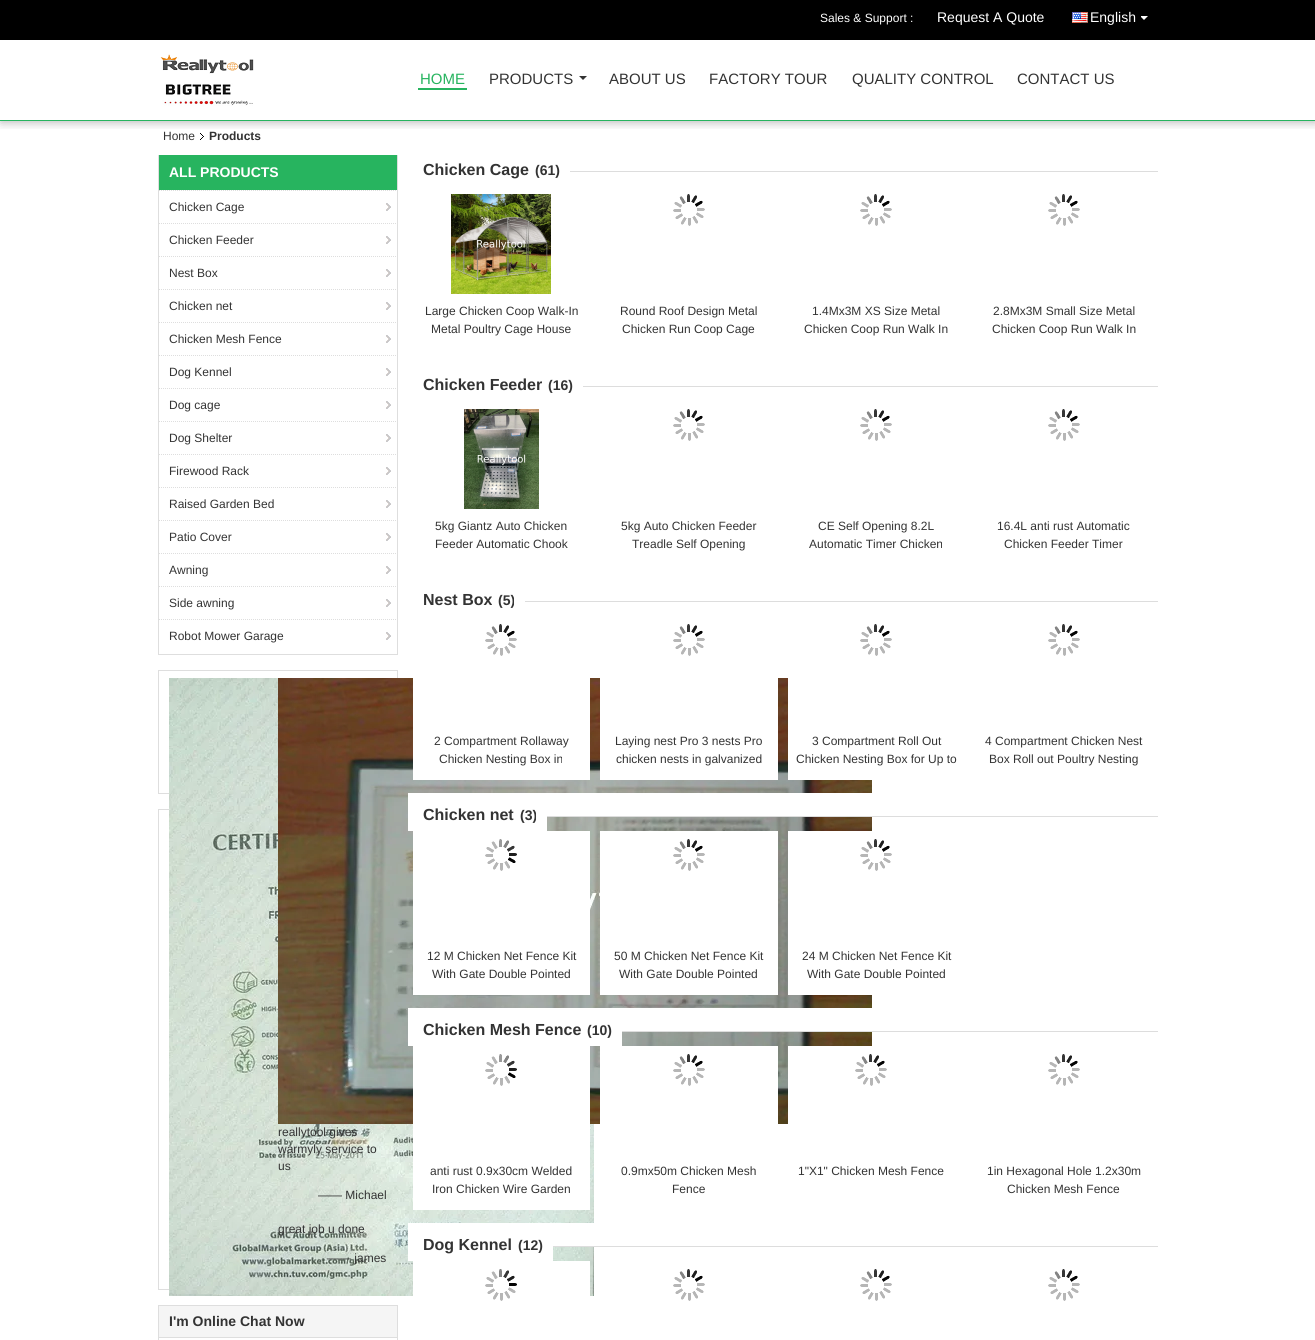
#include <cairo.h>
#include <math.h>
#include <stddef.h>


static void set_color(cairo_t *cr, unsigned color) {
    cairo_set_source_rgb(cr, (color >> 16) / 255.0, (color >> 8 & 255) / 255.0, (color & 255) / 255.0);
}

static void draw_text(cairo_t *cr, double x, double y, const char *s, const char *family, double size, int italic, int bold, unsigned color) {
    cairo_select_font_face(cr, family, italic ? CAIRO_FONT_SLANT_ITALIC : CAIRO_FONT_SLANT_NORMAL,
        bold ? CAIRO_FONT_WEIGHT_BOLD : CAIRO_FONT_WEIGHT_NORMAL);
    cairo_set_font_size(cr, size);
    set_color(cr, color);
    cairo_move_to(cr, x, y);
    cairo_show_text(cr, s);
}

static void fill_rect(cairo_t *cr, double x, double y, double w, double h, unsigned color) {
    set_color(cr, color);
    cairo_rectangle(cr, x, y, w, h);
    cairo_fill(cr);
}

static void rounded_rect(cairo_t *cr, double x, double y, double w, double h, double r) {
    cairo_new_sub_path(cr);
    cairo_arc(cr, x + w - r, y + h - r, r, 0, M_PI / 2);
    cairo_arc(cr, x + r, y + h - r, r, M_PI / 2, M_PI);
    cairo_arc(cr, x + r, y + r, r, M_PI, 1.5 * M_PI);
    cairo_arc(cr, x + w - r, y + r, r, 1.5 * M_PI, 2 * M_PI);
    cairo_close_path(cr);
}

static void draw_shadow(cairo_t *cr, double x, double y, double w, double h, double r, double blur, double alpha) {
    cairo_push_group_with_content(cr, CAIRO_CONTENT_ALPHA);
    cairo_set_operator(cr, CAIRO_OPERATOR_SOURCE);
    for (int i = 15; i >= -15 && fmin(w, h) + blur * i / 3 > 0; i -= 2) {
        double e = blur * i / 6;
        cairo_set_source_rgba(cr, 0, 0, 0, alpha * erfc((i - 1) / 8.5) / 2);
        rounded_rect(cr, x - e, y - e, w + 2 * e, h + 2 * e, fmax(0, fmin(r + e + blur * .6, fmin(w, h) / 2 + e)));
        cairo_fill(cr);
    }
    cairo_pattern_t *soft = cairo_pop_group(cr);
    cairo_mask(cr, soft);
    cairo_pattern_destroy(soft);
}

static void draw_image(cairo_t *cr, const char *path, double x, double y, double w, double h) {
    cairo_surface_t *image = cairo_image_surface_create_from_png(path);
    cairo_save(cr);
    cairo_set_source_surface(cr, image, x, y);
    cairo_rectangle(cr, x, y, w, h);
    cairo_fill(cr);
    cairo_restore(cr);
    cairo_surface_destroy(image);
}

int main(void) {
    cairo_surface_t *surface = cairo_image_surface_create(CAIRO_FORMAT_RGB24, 1315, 1340);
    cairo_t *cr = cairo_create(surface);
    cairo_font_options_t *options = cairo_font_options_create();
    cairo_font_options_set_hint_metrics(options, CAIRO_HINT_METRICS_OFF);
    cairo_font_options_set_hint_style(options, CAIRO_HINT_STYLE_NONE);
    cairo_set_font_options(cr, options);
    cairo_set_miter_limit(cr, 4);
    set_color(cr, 0xFFFFFF);
    cairo_paint(cr);
    cairo_save(cr);
    cairo_rectangle(cr, 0, 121, 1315, 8);
    cairo_clip(cr);
    set_color(cr, 0x000000);
    draw_shadow(cr, 1, 1, 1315, 121, 0, 5, 0.3);
    cairo_restore(cr);
    fill_rect(cr, 0, 120, 1315, 1, 0x27B45F);
    fill_rect(cr, 0, 0, 1315, 40, 0x000000);
    draw_text(cr, 820, 22, "Sales & Support :", "Liberation Sans", 12, 0, 0, 0xFFFFFF);
    draw_text(cr, 937, 22, "Request A Quote", "Liberation Sans", 14, 0, 0, 0xFFFFFF);
    draw_image(cr, "assets/img1.png", 1072, 12, 16, 11);
    draw_text(cr, 1090, 22, "English", "Liberation Sans", 14, 0, 0, 0xFFFFFF);
    draw_image(cr, "assets/img2.png", 1141, 16, 7, 4);
    draw_image(cr, "assets/img3.png", 160, 54, 94, 52);
    fill_rect(cr, 418, 88, 49, 2, 0x27B45F);
    draw_text(cr, 420, 84, "HOME", "Liberation Sans", 15, 0, 0, 0x27B45F);
    draw_text(cr, 489, 84, "PRODUCTS", "Liberation Sans", 15, 0, 0, 0x333333);
    cairo_new_path(cr);
    cairo_move_to(cr, 579, 76);
    cairo_line_to(cr, 587, 76);
    cairo_line_to(cr, 583, 80);
    cairo_close_path(cr);
    cairo_fill(cr);
    draw_text(cr, 609, 84, "ABOUT US", "Liberation Sans", 15, 0, 0, 0x333333);
    draw_text(cr, 709, 84, "FACTORY TOUR", "Liberation Sans", 15, 0, 0, 0x333333);
    draw_text(cr, 852, 84, "QUALITY CONTROL", "Liberation Sans", 15, 0, 0, 0x333333);
    draw_text(cr, 1017, 84, "CONTACT US", "Liberation Sans", 15, 0, 0, 0x333333);
    draw_text(cr, 163, 140, "Home", "Liberation Sans", 12, 0, 0, 0x333333);
    draw_image(cr, "assets/img4.png", 200, 133, 4, 7);
    draw_text(cr, 209, 140, "Products", "Liberation Sans", 12, 0, 1, 0x333333);
    fill_rect(cr, 397, 155, 1, 500, 0xDEDEDE);
    fill_rect(cr, 158, 654, 240, 1, 0xDEDEDE);
    fill_rect(cr, 158, 155, 1, 500, 0xDEDEDE);
    fill_rect(cr, 159, 155, 238, 35, 0x27B45F);
    draw_text(cr, 169, 177, "ALL PRODUCTS", "Liberation Sans", 14, 0, 1, 0xFFFFFF);
    draw_image(cr, "assets/img5.png", 386, 203, 5, 8);
    cairo_new_path(cr);
    cairo_move_to(cr, 159, 190.5);
    cairo_line_to(cr, 399, 190.5);
    set_color(cr, 0xDEDEDE);
    cairo_set_line_width(cr, 1);
    cairo_set_dash(cr, (double[]){1, 1}, 2, 0);
    cairo_stroke(cr);
    draw_text(cr, 169, 211, "Chicken Cage", "Liberation Sans", 12, 0, 0, 0x333333);
    draw_image(cr, "assets/img5.png", 386, 236, 5, 8);
    cairo_new_path(cr);
    cairo_move_to(cr, 159, 223.5);
    cairo_line_to(cr, 399, 223.5);
    set_color(cr, 0xDEDEDE);
    cairo_stroke(cr);
    draw_text(cr, 169, 244, "Chicken Feeder", "Liberation Sans", 12, 0, 0, 0x333333);
    draw_image(cr, "assets/img5.png", 386, 269, 5, 8);
    cairo_new_path(cr);
    cairo_move_to(cr, 159, 256.5);
    cairo_line_to(cr, 399, 256.5);
    set_color(cr, 0xDEDEDE);
    cairo_stroke(cr);
    draw_text(cr, 169, 277, "Nest Box", "Liberation Sans", 12, 0, 0, 0x333333);
    draw_image(cr, "assets/img5.png", 386, 302, 5, 8);
    cairo_new_path(cr);
    cairo_move_to(cr, 159, 289.5);
    cairo_line_to(cr, 399, 289.5);
    set_color(cr, 0xDEDEDE);
    cairo_stroke(cr);
    draw_text(cr, 169, 310, "Chicken net", "Liberation Sans", 12, 0, 0, 0x333333);
    draw_image(cr, "assets/img5.png", 386, 335, 5, 8);
    cairo_new_path(cr);
    cairo_move_to(cr, 159, 322.5);
    cairo_line_to(cr, 399, 322.5);
    set_color(cr, 0xDEDEDE);
    cairo_stroke(cr);
    draw_text(cr, 169, 343, "Chicken Mesh Fence", "Liberation Sans", 12, 0, 0, 0x333333);
    draw_image(cr, "assets/img5.png", 386, 368, 5, 8);
    cairo_new_path(cr);
    cairo_move_to(cr, 159, 355.5);
    cairo_line_to(cr, 399, 355.5);
    set_color(cr, 0xDEDEDE);
    cairo_stroke(cr);
    draw_text(cr, 169, 376, "Dog Kennel", "Liberation Sans", 12, 0, 0, 0x333333);
    draw_image(cr, "assets/img5.png", 386, 401, 5, 8);
    cairo_new_path(cr);
    cairo_move_to(cr, 159, 388.5);
    cairo_line_to(cr, 399, 388.5);
    set_color(cr, 0xDEDEDE);
    cairo_stroke(cr);
    draw_text(cr, 169, 409, "Dog cage", "Liberation Sans", 12, 0, 0, 0x333333);
    draw_image(cr, "assets/img5.png", 386, 434, 5, 8);
    cairo_new_path(cr);
    cairo_move_to(cr, 159, 421.5);
    cairo_line_to(cr, 399, 421.5);
    set_color(cr, 0xDEDEDE);
    cairo_stroke(cr);
    draw_text(cr, 169, 442, "Dog Shelter", "Liberation Sans", 12, 0, 0, 0x333333);
    draw_image(cr, "assets/img5.png", 386, 467, 5, 8);
    cairo_new_path(cr);
    cairo_move_to(cr, 159, 454.5);
    cairo_line_to(cr, 399, 454.5);
    set_color(cr, 0xDEDEDE);
    cairo_stroke(cr);
    draw_text(cr, 169, 475, "Firewood Rack", "Liberation Sans", 12, 0, 0, 0x333333);
    draw_image(cr, "assets/img5.png", 386, 500, 5, 8);
    cairo_new_path(cr);
    cairo_move_to(cr, 159, 487.5);
    cairo_line_to(cr, 399, 487.5);
    set_color(cr, 0xDEDEDE);
    cairo_stroke(cr);
    draw_text(cr, 169, 508, "Raised Garden Bed", "Liberation Sans", 12, 0, 0, 0x333333);
    draw_image(cr, "assets/img5.png", 386, 533, 5, 8);
    cairo_new_path(cr);
    cairo_move_to(cr, 159, 520.5);
    cairo_line_to(cr, 399, 520.5);
    set_color(cr, 0xDEDEDE);
    cairo_stroke(cr);
    draw_text(cr, 169, 541, "Patio Cover", "Liberation Sans", 12, 0, 0, 0x333333);
    draw_image(cr, "assets/img5.png", 386, 566, 5, 8);
    cairo_new_path(cr);
    cairo_move_to(cr, 159, 553.5);
    cairo_line_to(cr, 399, 553.5);
    set_color(cr, 0xDEDEDE);
    cairo_stroke(cr);
    draw_text(cr, 169, 574, "Awning", "Liberation Sans", 12, 0, 0, 0x333333);
    draw_image(cr, "assets/img5.png", 386, 599, 5, 8);
    cairo_new_path(cr);
    cairo_move_to(cr, 159, 586.5);
    cairo_line_to(cr, 399, 586.5);
    set_color(cr, 0xDEDEDE);
    cairo_stroke(cr);
    draw_text(cr, 169, 607, "Side awning", "Liberation Sans", 12, 0, 0, 0x333333);
    draw_image(cr, "assets/img5.png", 386, 632, 5, 8);
    cairo_new_path(cr);
    cairo_move_to(cr, 159, 619.5);
    cairo_line_to(cr, 399, 619.5);
    set_color(cr, 0xDEDEDE);
    cairo_stroke(cr);
    draw_text(cr, 169, 640, "Robot Mower Garage", "Liberation Sans", 12, 0, 0, 0x333333);
    cairo_rectangle(cr, 158.5, 670.5, 239, 123);
    set_color(cr, 0xDEDEDE);
    cairo_set_dash(cr, NULL, 0, 0);
    cairo_stroke(cr);
    cairo_rectangle(cr, 158.5, 809.5, 239, 480);
    cairo_stroke(cr);
    draw_image(cr, "assets/img6.png", 169, 678, 425, 618);
    draw_image(cr, "assets/img7.png", 278, 678, 594, 446);
    draw_text(cr, 278, 1136, "reallytool gives", "Liberation Sans", 12, 0, 0, 0x333333);
    draw_text(cr, 278, 1153, "warmyly service to", "Liberation Sans", 12, 0, 0, 0x333333);
    draw_text(cr, 278, 1170, "us", "Liberation Sans", 12, 0, 0, 0x333333);
    draw_text(cr, 318, 1199, "—— Michael", "Liberation Sans", 12, 0, 0, 0x333333);
    draw_text(cr, 278, 1233, "great job u done", "Liberation Sans", 12, 0, 0, 0x333333);
    draw_text(cr, 327, 1262, "—— james", "Liberation Sans", 12, 0, 0, 0x333333);
    cairo_rectangle(cr, 158.5, 1305.5, 239, 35);
    set_color(cr, 0xDEDEDE);
    cairo_stroke(cr);
    fill_rect(cr, 159, 1306, 238, 31, 0xF5F5F5);
    fill_rect(cr, 159, 1337, 238, 1, 0xDEDEDE);
    draw_text(cr, 169, 1326, "I'm Online Chat Now", "Liberation Sans", 14, 0, 1, 0x333333);
    fill_rect(cr, 570, 171, 588, 1, 0xDDDDDD);
    draw_text(cr, 423, 175, "Chicken Cage", "Liberation Sans", 16, 0, 1, 0x333333);
    draw_text(cr, 535, 175, "(61)", "Liberation Sans", 14, 0, 1, 0x333333);
    draw_image(cr, "assets/img8.png", 451, 194, 100, 100);
    draw_text(cr, 425, 315, "Large Chicken Coop Walk-In", "Liberation Sans", 12, 0, 0, 0x333333);
    draw_text(cr, 431, 333, "Metal Poultry Cage House", "Liberation Sans", 12, 0, 0, 0x333333);
    draw_image(cr, "assets/img9.png", 673, 194, 32, 32);
    draw_text(cr, 620, 315, "Round Roof Design Metal", "Liberation Sans", 12, 0, 0, 0x333333);
    draw_text(cr, 622, 333, "Chicken Run Coop Cage", "Liberation Sans", 12, 0, 0, 0x333333);
    draw_image(cr, "assets/img9.png", 860, 194, 32, 32);
    draw_text(cr, 812, 315, "1.4Mx3M XS Size Metal", "Liberation Sans", 12, 0, 0, 0x333333);
    draw_text(cr, 804, 333, "Chicken Coop Run Walk In", "Liberation Sans", 12, 0, 0, 0x333333);
    draw_image(cr, "assets/img9.png", 1048, 194, 32, 32);
    draw_text(cr, 993, 315, "2.8Mx3M Small Size Metal", "Liberation Sans", 12, 0, 0, 0x333333);
    draw_text(cr, 992, 333, "Chicken Coop Run Walk In", "Liberation Sans", 12, 0, 0, 0x333333);
    fill_rect(cr, 583, 386, 575, 1, 0xDDDDDD);
    draw_text(cr, 423, 390, "Chicken Feeder", "Liberation Sans", 16, 0, 1, 0x333333);
    draw_text(cr, 548, 390, "(16)", "Liberation Sans", 14, 0, 1, 0x333333);
    draw_image(cr, "assets/img10.png", 464, 409, 75, 100);
    draw_text(cr, 435, 530, "5kg Giantz Auto Chicken", "Liberation Sans", 12, 0, 0, 0x333333);
    draw_text(cr, 435, 548, "Feeder Automatic Chook", "Liberation Sans", 12, 0, 0, 0x333333);
    draw_image(cr, "assets/img9.png", 673, 409, 32, 32);
    draw_text(cr, 621, 530, "5kg Auto Chicken Feeder", "Liberation Sans", 12, 0, 0, 0x333333);
    draw_text(cr, 632, 548, "Treadle Self Opening", "Liberation Sans", 12, 0, 0, 0x333333);
    draw_image(cr, "assets/img9.png", 860, 409, 32, 32);
    draw_text(cr, 818, 530, "CE Self Opening 8.2L", "Liberation Sans", 12, 0, 0, 0x333333);
    draw_text(cr, 809, 548, "Automatic Timer Chicken", "Liberation Sans", 12, 0, 0, 0x333333);
    draw_image(cr, "assets/img9.png", 1048, 409, 32, 32);
    draw_text(cr, 997, 530, "16.4L anti rust Automatic", "Liberation Sans", 12, 0, 0, 0x333333);
    draw_text(cr, 1004, 548, "Chicken Feeder Timer", "Liberation Sans", 12, 0, 0, 0x333333);
    fill_rect(cr, 525, 601, 633, 1, 0xDDDDDD);
    draw_text(cr, 423, 605, "Nest Box", "Liberation Sans", 16, 0, 1, 0x333333);
    draw_text(cr, 498, 605, "(5)", "Liberation Sans", 14, 0, 1, 0x333333);
    fill_rect(cr, 413, 678, 177, 102, 0xFFFFFF);
    draw_image(cr, "assets/img9.png", 485, 624, 32, 32);
    draw_text(cr, 434, 745, "2 Compartment Rollaway", "Liberation Sans", 12, 0, 0, 0x333333);
    draw_text(cr, 439, 763, "Chicken Nesting Box in", "Liberation Sans", 12, 0, 0, 0x333333);
    fill_rect(cr, 600, 678, 178, 102, 0xFFFFFF);
    draw_image(cr, "assets/img9.png", 673, 624, 32, 32);
    draw_text(cr, 615, 745, "Laying nest Pro 3 nests Pro", "Liberation Sans", 12, 0, 0, 0x333333);
    draw_text(cr, 616, 763, "chicken nests in galvanized", "Liberation Sans", 12, 0, 0, 0x333333);
    fill_rect(cr, 788, 678, 84, 102, 0xFFFFFF);
    draw_image(cr, "assets/img9.png", 860, 624, 32, 32);
    draw_text(cr, 812, 745, "3 Compartment Roll Out", "Liberation Sans", 12, 0, 0, 0x333333);
    draw_text(cr, 796, 763, "Chicken Nesting Box for Up to", "Liberation Sans", 12, 0, 0, 0x333333);
    draw_image(cr, "assets/img9.png", 1048, 624, 32, 32);
    draw_text(cr, 985, 745, "4 Compartment Chicken Nest", "Liberation Sans", 12, 0, 0, 0x333333);
    draw_text(cr, 989, 763, "Box Roll out Poultry Nesting", "Liberation Sans", 12, 0, 0, 0x333333);
    fill_rect(cr, 408, 793, 464, 23, 0xFFFFFF);
    fill_rect(cr, 547, 816, 611, 1, 0xDDDDDD);
    fill_rect(cr, 408, 816, 139, 15, 0xFFFFFF);
    draw_text(cr, 423, 820, "Chicken net", "Liberation Sans", 16, 0, 1, 0x333333);
    draw_text(cr, 520, 820, "(3)", "Liberation Sans", 14, 0, 1, 0x333333);
    fill_rect(cr, 413, 831, 177, 164, 0xFFFFFF);
    draw_image(cr, "assets/img11.png", 485, 839, 32, 32);
    draw_text(cr, 427, 960, "12 M Chicken Net Fence Kit", "Liberation Sans", 12, 0, 0, 0x333333);
    draw_text(cr, 432, 978, "With Gate Double Pointed", "Liberation Sans", 12, 0, 0, 0x333333);
    fill_rect(cr, 600, 831, 178, 164, 0xFFFFFF);
    draw_image(cr, "assets/img9.png", 673, 839, 32, 32);
    draw_text(cr, 614, 960, "50 M Chicken Net Fence Kit", "Liberation Sans", 12, 0, 0, 0x333333);
    draw_text(cr, 619, 978, "With Gate Double Pointed", "Liberation Sans", 12, 0, 0, 0x333333);
    fill_rect(cr, 788, 831, 84, 164, 0xFFFFFF);
    draw_image(cr, "assets/img9.png", 860, 839, 32, 32);
    draw_text(cr, 802, 960, "24 M Chicken Net Fence Kit", "Liberation Sans", 12, 0, 0, 0x333333);
    draw_text(cr, 807, 978, "With Gate Double Pointed", "Liberation Sans", 12, 0, 0, 0x333333);
    fill_rect(cr, 408, 1008, 464, 23, 0xFFFFFF);
    fill_rect(cr, 622, 1031, 536, 1, 0xDDDDDD);
    fill_rect(cr, 408, 1031, 214, 15, 0xFFFFFF);
    draw_text(cr, 423, 1035, "Chicken Mesh Fence", "Liberation Sans", 16, 0, 1, 0x333333);
    draw_text(cr, 587, 1035, "(10)", "Liberation Sans", 14, 0, 1, 0x333333);
    fill_rect(cr, 413, 1046, 177, 164, 0xFFFFFF);
    draw_image(cr, "assets/img11.png", 485, 1054, 32, 32);
    draw_text(cr, 430, 1175, "anti rust 0.9x30cm Welded", "Liberation Sans", 12, 0, 0, 0x333333);
    draw_text(cr, 432, 1193, "Iron Chicken Wire Garden", "Liberation Sans", 12, 0, 0, 0x333333);
    fill_rect(cr, 600, 1046, 178, 78, 0xFFFFFF);
    draw_image(cr, "assets/img9.png", 673, 1054, 32, 32);
    draw_text(cr, 621, 1175, "0.9mx50m Chicken Mesh", "Liberation Sans", 12, 0, 0, 0x333333);
    draw_text(cr, 672, 1193, "Fence", "Liberation Sans", 12, 0, 0, 0x333333);
    fill_rect(cr, 788, 1046, 84, 78, 0xFFFFFF);
    draw_image(cr, "assets/img9.png", 855, 1054, 32, 32);
    draw_text(cr, 798, 1175, "1\"X1\" Chicken Mesh Fence", "Liberation Sans", 12, 0, 0, 0x333333);
    draw_image(cr, "assets/img9.png", 1048, 1054, 32, 32);
    draw_text(cr, 987, 1175, "1in Hexagonal Hole 1.2x30m", "Liberation Sans", 12, 0, 0, 0x333333);
    draw_text(cr, 1007, 1193, "Chicken Mesh Fence", "Liberation Sans", 12, 0, 0, 0x333333);
    fill_rect(cr, 408, 1223, 186, 23, 0xFFFFFF);
    fill_rect(cr, 553, 1246, 605, 1, 0xDDDDDD);
    fill_rect(cr, 408, 1246, 145, 15, 0xFFFFFF);
    draw_text(cr, 423, 1250, "Dog Kennel", "Liberation Sans", 16, 0, 1, 0x333333);
    draw_text(cr, 518, 1250, "(12)", "Liberation Sans", 14, 0, 1, 0x333333);
    fill_rect(cr, 413, 1261, 177, 35, 0xFFFFFF);
    draw_image(cr, "assets/img12.png", 485, 1269, 32, 32);
    draw_image(cr, "assets/img9.png", 673, 1269, 32, 32);
    draw_image(cr, "assets/img9.png", 860, 1269, 32, 32);
    draw_image(cr, "assets/img9.png", 1048, 1269, 32, 32);
    cairo_surface_write_to_png(surface, "output.png");
    cairo_font_options_destroy(options);
    cairo_destroy(cr);
    cairo_surface_destroy(surface);
    return 0;
}
